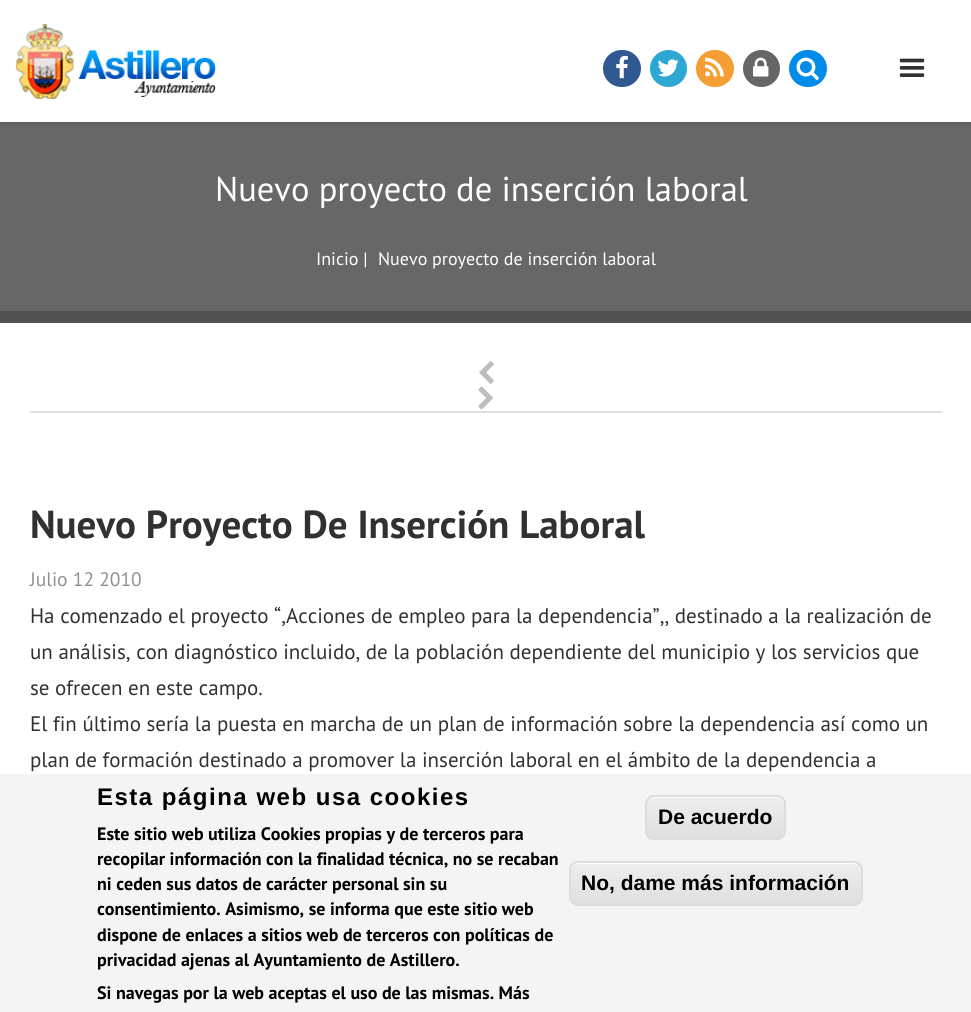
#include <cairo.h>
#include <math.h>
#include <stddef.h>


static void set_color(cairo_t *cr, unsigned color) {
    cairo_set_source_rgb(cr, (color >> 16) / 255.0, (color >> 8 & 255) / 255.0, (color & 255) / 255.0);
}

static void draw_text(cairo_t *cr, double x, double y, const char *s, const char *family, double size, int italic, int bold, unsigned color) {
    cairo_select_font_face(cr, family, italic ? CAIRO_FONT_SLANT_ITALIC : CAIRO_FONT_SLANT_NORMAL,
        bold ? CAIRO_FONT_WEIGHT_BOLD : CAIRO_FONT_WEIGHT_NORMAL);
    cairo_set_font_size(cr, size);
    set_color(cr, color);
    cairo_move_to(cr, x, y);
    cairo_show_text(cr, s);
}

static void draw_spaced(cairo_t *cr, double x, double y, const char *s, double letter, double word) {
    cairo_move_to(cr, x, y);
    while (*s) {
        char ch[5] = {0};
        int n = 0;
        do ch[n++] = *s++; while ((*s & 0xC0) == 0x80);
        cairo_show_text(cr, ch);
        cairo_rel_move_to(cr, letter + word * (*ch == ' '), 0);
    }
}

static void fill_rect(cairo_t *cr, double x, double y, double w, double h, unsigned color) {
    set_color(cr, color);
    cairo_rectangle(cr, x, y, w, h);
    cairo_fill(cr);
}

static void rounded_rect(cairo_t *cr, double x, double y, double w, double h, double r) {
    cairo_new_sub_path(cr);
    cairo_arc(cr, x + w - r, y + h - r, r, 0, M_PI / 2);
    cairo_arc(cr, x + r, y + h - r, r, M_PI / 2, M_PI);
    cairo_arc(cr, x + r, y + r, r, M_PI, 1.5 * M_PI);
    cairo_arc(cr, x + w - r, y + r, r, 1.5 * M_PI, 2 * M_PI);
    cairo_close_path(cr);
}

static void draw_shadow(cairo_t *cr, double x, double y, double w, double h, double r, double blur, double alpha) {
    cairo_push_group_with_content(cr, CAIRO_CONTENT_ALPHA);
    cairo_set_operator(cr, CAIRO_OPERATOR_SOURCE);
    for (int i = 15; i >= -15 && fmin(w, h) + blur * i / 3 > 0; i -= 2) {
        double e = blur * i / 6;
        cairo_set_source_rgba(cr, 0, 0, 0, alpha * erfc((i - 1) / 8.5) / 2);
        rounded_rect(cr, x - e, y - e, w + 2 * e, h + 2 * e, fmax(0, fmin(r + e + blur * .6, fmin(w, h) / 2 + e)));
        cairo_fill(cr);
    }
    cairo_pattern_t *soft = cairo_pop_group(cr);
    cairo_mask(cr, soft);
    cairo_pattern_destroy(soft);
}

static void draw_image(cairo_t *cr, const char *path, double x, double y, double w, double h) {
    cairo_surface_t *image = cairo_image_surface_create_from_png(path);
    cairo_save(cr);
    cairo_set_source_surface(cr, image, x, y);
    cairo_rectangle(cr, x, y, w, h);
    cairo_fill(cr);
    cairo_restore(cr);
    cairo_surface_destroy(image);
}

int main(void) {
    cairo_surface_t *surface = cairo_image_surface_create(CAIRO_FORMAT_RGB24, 971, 1012);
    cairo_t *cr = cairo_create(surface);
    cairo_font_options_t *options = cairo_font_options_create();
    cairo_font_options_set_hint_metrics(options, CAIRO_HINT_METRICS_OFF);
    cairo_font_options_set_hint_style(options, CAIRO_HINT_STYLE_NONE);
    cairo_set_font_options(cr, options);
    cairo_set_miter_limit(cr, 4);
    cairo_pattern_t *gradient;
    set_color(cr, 0xFFFFFF);
    cairo_paint(cr);
    fill_rect(cr, 0, 122, 971, 189, 0x676767);
    set_color(cr, 0x000000);
    draw_shadow(cr, -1, 0, 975, 125, 0, 2, 0.09);
    fill_rect(cr, 0, 0, 971, 122, 0xFFFFFF);
    draw_image(cr, "assets/img1.png", 16, 24, 200, 75);
    draw_image(cr, "assets/img2.png", 899, 58, 26, 19);
    set_color(cr, 0x305891);
    rounded_rect(cr, 603, 50, 38, 37, 18.5);
    cairo_fill(cr);
    draw_image(cr, "assets/img3.png", 616, 55, 12, 24);
    set_color(cr, 0x2CA8D2);
    cairo_arc(cr, 668.5, 68.5, 18.5, 0, 2 * M_PI);
    cairo_fill(cr);
    draw_image(cr, "assets/img4.png", 657, 59, 22, 18);
    set_color(cr, 0xF49E33);
    rounded_rect(cr, 696, 50, 38, 37, 18.5);
    cairo_fill(cr);
    draw_image(cr, "assets/img5.png", 705, 57, 19, 20);
    set_color(cr, 0x666666);
    cairo_arc(cr, 761.5, 68.5, 18.5, 0, 2 * M_PI);
    cairo_fill(cr);
    draw_image(cr, "assets/img6.png", 753, 57, 16, 20);
    set_color(cr, 0x018CEA);
    rounded_rect(cr, 789, 50, 38, 37, 18.5);
    cairo_fill(cr);
    draw_image(cr, "assets/img7.png", 796, 57, 23, 23);
    fill_rect(cr, 0, 311, 971, 12, 0x525252);
    draw_text(cr, 215, 201, "Nuevo proyecto de inserción laboral", "PT Sans", 34.5, 0, 0, 0xFFFFFF);
    draw_text(cr, 316, 265, "Inicio |", "PT Sans", 18, 0, 0, 0xFFFFFF);
    draw_text(cr, 378, 265, "Nuevo proyecto de inserción laboral", "PT Sans", 18, 0, 0, 0xFFFFFF);
    fill_rect(cr, 30, 411, 912, 2, 0xE1E1E1);
    draw_image(cr, "assets/img8.png", 479, 361, 15, 23);
    draw_image(cr, "assets/img9.png", 478, 386, 15, 24);
    draw_text(cr, 30, 538, "Nuevo Proyecto De Inserción Laboral", "PT Sans", 39, 0, 1, 0x313131);
    draw_text(cr, 30, 586, "Julio 12 2010", "PT Sans", 19.5, 0, 0, 0x919191);
    draw_text(cr, 30, 623, "Ha comenzado el proyecto “,Acciones de empleo para la dependencia”,, destinado a la realización de", "PT Sans", 21, 0, 0, 0x313131);
    draw_text(cr, 30, 659, "un análisis, con diagnóstico incluido, de la población dependiente del municipio y los servicios que", "PT Sans", 21, 0, 0, 0x313131);
    draw_text(cr, 30, 695, "se ofrecen en este campo.", "PT Sans", 21, 0, 0, 0x313131);
    draw_text(cr, 30, 731, "El fin último sería la puesta en marcha de un plan de información sobre la dependencia así como un", "PT Sans", 21, 0, 0, 0x313131);
    draw_text(cr, 30, 767, "plan de formación destinado a promover la inserción laboral en el ámbito de la dependencia a", "PT Sans", 21, 0, 0, 0x313131);
    fill_rect(cr, 0, 774, 971, 238, 0xF5F4F4);
    cairo_select_font_face(cr, "Liberation Sans", CAIRO_FONT_SLANT_NORMAL, CAIRO_FONT_WEIGHT_BOLD);
    cairo_set_font_size(cr, 24);
    set_color(cr, 0x000000);
    draw_spaced(cr, 97, 805, "Esta página web usa cookies", 1.5, 0);
    draw_text(cr, 97, 840, "Este sitio web utiliza Cookies propias y de terceros para", "PT Sans", 18, 0, 1, 0x000000);
    draw_text(cr, 97, 865, "recopilar información con la finalidad técnica, no se recaban", "PT Sans", 18, 0, 1, 0x000000);
    draw_text(cr, 97, 890, "ni ceden sus datos de carácter personal sin su", "PT Sans", 18, 0, 1, 0x000000);
    draw_text(cr, 97, 915, "consentimiento. Asimismo, se informa que este sitio web", "PT Sans", 18, 0, 1, 0x000000);
    draw_text(cr, 97, 941, "dispone de enlaces a sitios web de terceros con políticas de", "PT Sans", 18, 0, 1, 0x000000);
    draw_text(cr, 97, 966, "privacidad ajenas al Ayuntamiento de Astillero.", "PT Sans", 18, 0, 1, 0x000000);
    draw_text(cr, 97, 999, "Si navegas por la web aceptas el uso de las mismas. Más", "PT Sans", 18, 0, 1, 0x000000);
    cairo_save(cr);
    rounded_rect(cr, 645, 795, 141, 45, 9);
    cairo_clip(cr);
    gradient = cairo_pattern_create_linear(647, 797, 647, 839);
    cairo_pattern_add_color_stop_rgba(gradient, 0.05, 0.929, 0.929, 0.929, 1);
    cairo_pattern_add_color_stop_rgba(gradient, 1, 0.875, 0.875, 0.875, 1);
    cairo_set_source(cr, gradient);
    cairo_pattern_destroy(gradient);
    cairo_rectangle(cr, 645, 797, 141, 42);
    cairo_fill(cr);
    cairo_restore(cr);
    set_color(cr, 0xFFFFFF);
    cairo_new_path(cr);
    cairo_move_to(cr, 654, 798);
    cairo_line_to(cr, 777, 798);
    cairo_curve_to(cr, 781, 798, 784, 801, 784, 806);
    cairo_line_to(cr, 784, 832);
    cairo_line_to(cr, 783, 836);
    cairo_curve_to(cr, 784, 835, 785, 833, 785, 831);
    cairo_line_to(cr, 785, 805);
    cairo_curve_to(cr, 785, 801, 781, 797, 777, 797);
    cairo_line_to(cr, 655, 797);
    cairo_curve_to(cr, 653, 797, 650, 798, 649, 800);
    cairo_curve_to(cr, 650, 799, 652, 798, 654, 798);
    cairo_close_path(cr);
    cairo_fill(cr);
    rounded_rect(cr, 646, 796, 139, 43, 8);
    set_color(cr, 0xDCDCDC);
    cairo_stroke(cr);
    draw_text(cr, 658, 824, "De acuerdo", "Liberation Sans", 21, 0, 1, 0x000000);
    cairo_save(cr);
    rounded_rect(cr, 569, 861, 294, 45, 9);
    cairo_clip(cr);
    gradient = cairo_pattern_create_linear(570, 863, 570, 905);
    cairo_pattern_add_color_stop_rgba(gradient, 0.05, 0.929, 0.929, 0.929, 1);
    cairo_pattern_add_color_stop_rgba(gradient, 1, 0.875, 0.875, 0.875, 1);
    cairo_set_source(cr, gradient);
    cairo_pattern_destroy(gradient);
    cairo_rectangle(cr, 569, 863, 294, 42);
    cairo_fill(cr);
    cairo_restore(cr);
    set_color(cr, 0xFFFFFF);
    cairo_new_path(cr);
    cairo_move_to(cr, 578, 864);
    cairo_line_to(cr, 854, 864);
    cairo_curve_to(cr, 858, 864, 861, 867, 861, 872);
    cairo_line_to(cr, 861, 871);
    cairo_curve_to(cr, 861, 867, 857, 863, 853, 863);
    cairo_line_to(cr, 578, 863);
    cairo_curve_to(cr, 574, 863, 570, 867, 570, 871);
    cairo_line_to(cr, 570, 872);
    cairo_curve_to(cr, 570, 867, 573, 864, 578, 864);
    cairo_close_path(cr);
    cairo_fill(cr);
    rounded_rect(cr, 570, 862, 292, 43, 8);
    set_color(cr, 0xDCDCDC);
    cairo_stroke(cr);
    draw_text(cr, 581, 890, "No, dame más información", "Liberation Sans", 21, 0, 1, 0x000000);
    cairo_surface_write_to_png(surface, "output.png");
    cairo_font_options_destroy(options);
    cairo_destroy(cr);
    cairo_surface_destroy(surface);
    return 0;
}
